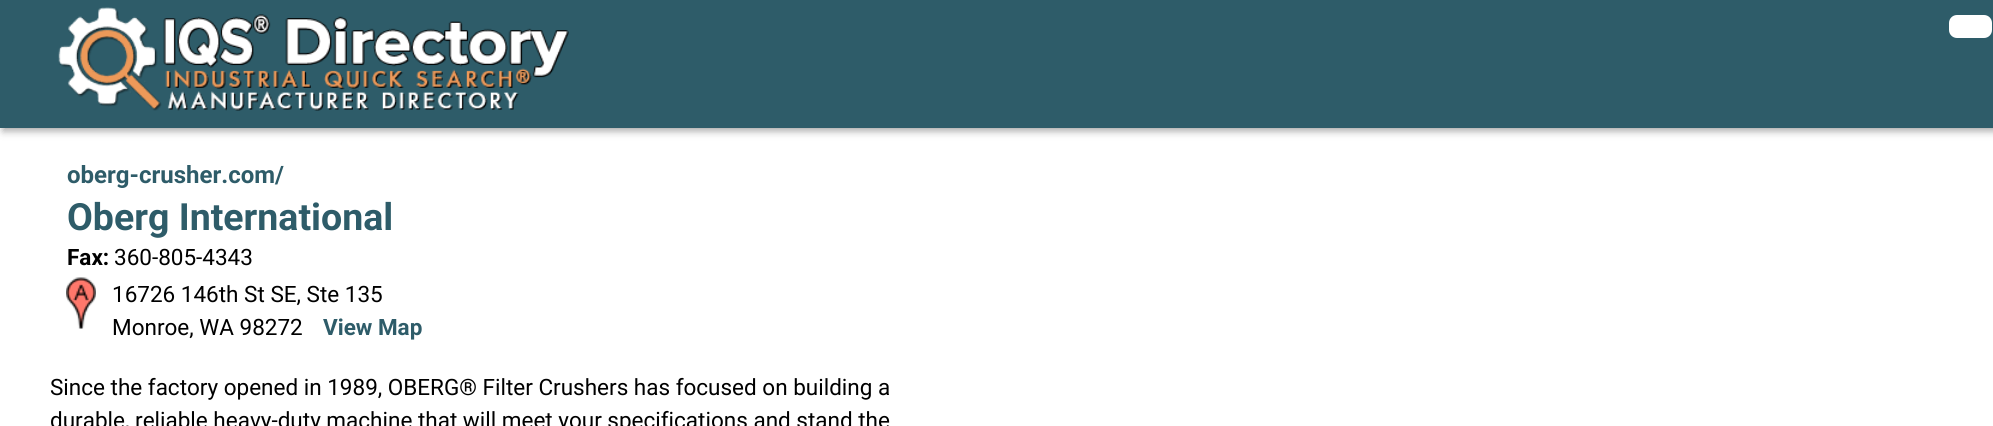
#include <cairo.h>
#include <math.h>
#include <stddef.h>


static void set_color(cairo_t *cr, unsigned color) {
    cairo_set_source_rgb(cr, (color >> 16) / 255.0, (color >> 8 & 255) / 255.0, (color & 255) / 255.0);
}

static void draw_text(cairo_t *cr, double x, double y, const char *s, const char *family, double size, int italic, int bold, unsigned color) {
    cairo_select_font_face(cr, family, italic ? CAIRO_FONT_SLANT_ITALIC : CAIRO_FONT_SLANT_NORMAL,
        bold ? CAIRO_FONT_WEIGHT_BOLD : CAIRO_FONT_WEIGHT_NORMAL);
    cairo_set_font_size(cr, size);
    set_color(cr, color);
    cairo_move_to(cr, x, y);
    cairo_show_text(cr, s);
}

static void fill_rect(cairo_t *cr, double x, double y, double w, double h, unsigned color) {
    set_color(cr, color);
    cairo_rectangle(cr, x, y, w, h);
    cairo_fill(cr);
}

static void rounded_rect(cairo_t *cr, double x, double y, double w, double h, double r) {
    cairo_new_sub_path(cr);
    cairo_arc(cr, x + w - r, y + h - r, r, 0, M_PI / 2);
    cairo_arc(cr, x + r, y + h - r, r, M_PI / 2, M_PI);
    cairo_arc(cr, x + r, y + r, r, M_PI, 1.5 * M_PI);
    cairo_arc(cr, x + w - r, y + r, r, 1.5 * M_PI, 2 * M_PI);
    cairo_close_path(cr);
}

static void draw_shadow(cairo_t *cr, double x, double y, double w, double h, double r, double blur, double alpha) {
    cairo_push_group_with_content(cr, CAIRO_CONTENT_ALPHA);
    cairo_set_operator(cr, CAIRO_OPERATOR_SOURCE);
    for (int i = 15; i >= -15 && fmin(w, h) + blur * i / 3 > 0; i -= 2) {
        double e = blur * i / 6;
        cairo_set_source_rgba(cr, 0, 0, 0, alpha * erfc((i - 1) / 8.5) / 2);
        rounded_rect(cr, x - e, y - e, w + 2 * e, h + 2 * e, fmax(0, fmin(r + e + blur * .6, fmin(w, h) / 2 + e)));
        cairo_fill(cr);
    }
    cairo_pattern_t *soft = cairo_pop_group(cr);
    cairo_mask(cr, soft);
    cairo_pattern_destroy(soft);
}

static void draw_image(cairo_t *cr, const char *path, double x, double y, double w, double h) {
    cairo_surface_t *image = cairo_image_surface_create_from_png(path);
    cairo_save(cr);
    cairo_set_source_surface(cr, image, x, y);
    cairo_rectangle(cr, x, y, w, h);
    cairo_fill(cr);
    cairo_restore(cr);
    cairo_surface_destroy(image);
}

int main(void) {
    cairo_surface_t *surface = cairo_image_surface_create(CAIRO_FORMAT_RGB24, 1993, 426);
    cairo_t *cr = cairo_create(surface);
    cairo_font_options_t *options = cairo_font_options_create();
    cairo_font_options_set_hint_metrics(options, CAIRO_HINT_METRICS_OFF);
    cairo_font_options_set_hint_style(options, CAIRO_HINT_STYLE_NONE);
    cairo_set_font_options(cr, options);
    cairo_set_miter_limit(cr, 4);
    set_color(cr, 0xFFFFFF);
    cairo_paint(cr);
    set_color(cr, 0x323232);
    draw_shadow(cr, 3, 3, 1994, 128, 0, 4, 0.43);
    fill_rect(cr, 0, 0, 1993, 128, 0x2E5C69);
    draw_image(cr, "assets/img1.png", 58, 7, 511, 104);
    set_color(cr, 0xFFFFFF);
    rounded_rect(cr, 1949, 15, 43, 23, 8);
    cairo_fill(cr);
    draw_text(cr, 67, 183, "oberg-crusher.com/", "Roboto", 24, 0, 1, 0x2E5C69);
    draw_text(cr, 67, 230, "Oberg International", "Roboto", 37.5, 0, 1, 0x2E5C69);
    draw_text(cr, 67, 265, "Fax:", "Roboto", 22.5, 0, 1, 0x000000);
    draw_text(cr, 114, 265, "360-805-4343", "Roboto", 22.5, 0, 0, 0x000000);
    draw_image(cr, "assets/img2.png", 66, 277, 30, 52);
    draw_text(cr, 112, 302, "16726 146th St SE, Ste 135", "Roboto", 22.5, 0, 0, 0x000000);
    draw_text(cr, 112, 335, "Monroe, WA 98272", "Roboto", 22.5, 0, 0, 0x000000);
    draw_text(cr, 323, 335, "View Map", "Roboto", 22.5, 0, 1, 0x2E5C69);
    draw_text(cr, 50, 395, "Since the factory opened in 1989, OBERG® Filter Crushers has focused on building a", "Roboto", 22.5, 0, 0, 0x000000);
    draw_text(cr, 50, 428, "durable, reliable heavy-duty machine that will meet your specifications and stand the", "Roboto", 22.5, 0, 0, 0x000000);
    cairo_surface_write_to_png(surface, "output.png");
    cairo_font_options_destroy(options);
    cairo_destroy(cr);
    cairo_surface_destroy(surface);
    return 0;
}
